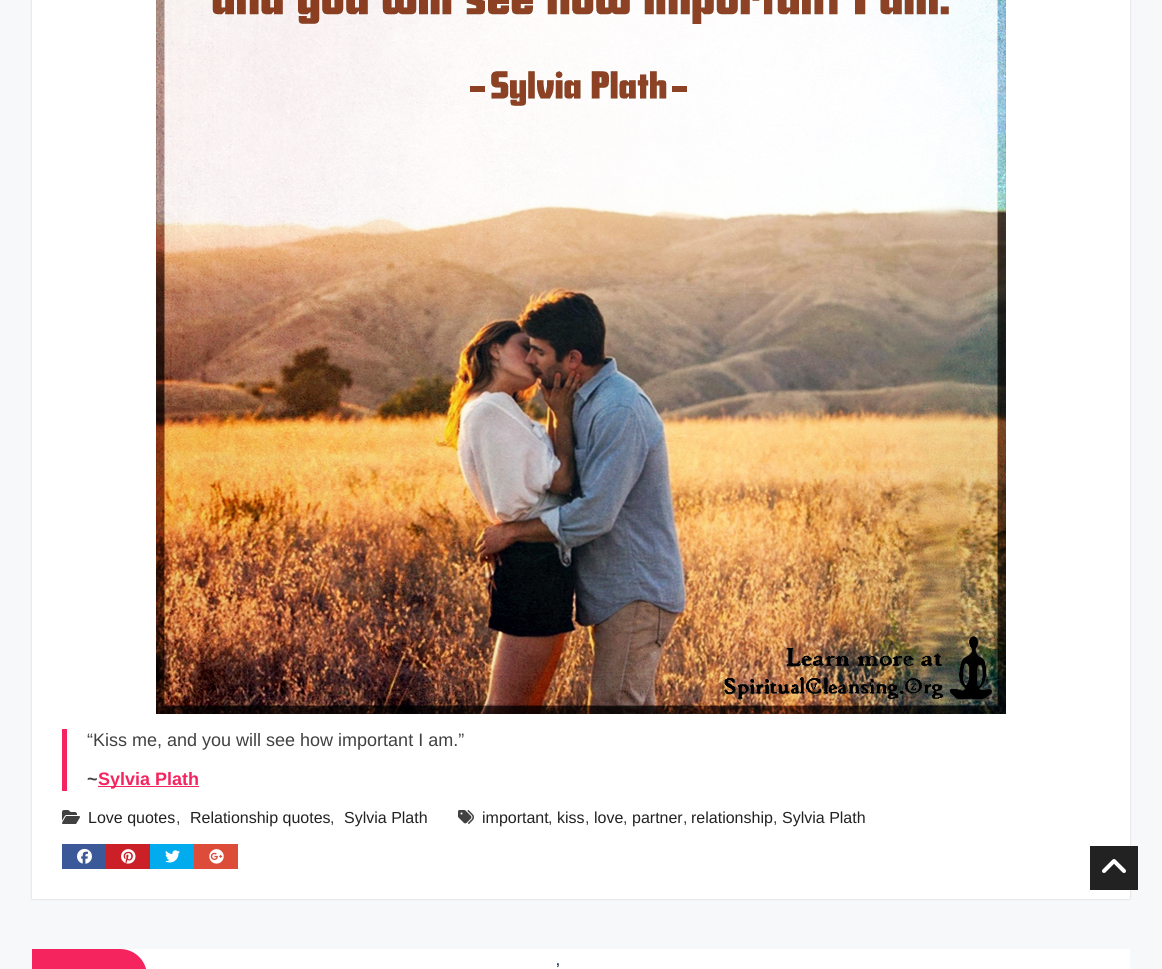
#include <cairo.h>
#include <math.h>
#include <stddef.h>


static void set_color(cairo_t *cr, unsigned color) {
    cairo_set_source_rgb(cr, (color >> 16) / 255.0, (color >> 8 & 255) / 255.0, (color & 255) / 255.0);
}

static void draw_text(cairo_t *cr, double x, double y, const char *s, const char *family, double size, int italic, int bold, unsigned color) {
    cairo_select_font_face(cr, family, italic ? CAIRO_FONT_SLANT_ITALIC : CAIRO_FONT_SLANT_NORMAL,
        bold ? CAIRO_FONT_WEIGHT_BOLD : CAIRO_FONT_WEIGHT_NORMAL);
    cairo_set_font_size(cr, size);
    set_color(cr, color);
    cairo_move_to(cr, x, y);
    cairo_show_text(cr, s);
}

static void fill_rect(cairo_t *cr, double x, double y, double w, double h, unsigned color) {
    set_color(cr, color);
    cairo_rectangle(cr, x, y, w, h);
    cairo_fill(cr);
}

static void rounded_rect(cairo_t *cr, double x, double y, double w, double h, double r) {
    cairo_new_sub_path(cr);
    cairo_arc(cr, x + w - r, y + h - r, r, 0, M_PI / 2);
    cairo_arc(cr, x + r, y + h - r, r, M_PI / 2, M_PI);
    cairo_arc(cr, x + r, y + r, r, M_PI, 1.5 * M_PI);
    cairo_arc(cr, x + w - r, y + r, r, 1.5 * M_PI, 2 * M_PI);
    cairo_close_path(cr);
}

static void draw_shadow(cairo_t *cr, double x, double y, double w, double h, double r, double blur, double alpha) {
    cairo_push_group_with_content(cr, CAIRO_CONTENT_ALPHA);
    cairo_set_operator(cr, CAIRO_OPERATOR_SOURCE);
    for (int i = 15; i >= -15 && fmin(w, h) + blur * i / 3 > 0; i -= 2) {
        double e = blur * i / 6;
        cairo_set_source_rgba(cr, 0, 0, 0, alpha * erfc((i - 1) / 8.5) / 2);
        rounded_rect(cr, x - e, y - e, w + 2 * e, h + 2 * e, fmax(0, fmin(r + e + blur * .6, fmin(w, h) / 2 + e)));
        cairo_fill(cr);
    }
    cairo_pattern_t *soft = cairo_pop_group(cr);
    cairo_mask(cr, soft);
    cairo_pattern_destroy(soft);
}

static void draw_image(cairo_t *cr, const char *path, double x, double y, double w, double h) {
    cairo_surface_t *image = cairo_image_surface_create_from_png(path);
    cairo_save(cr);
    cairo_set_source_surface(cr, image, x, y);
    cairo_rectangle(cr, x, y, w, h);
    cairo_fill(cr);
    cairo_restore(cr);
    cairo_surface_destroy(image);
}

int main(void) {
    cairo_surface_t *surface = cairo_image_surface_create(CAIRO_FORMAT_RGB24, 1162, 969);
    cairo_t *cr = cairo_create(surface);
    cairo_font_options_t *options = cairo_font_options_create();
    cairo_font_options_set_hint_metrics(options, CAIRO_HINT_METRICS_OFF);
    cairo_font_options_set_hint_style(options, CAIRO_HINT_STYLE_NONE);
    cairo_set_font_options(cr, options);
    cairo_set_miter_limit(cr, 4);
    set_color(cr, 0xF7F8FA);
    cairo_paint(cr);
    set_color(cr, 0xCFCFCF);
    draw_shadow(cr, 32, -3, 1098, 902, 0, 1, 1);
    fill_rect(cr, 32, 0, 1098, 899, 0xFFFFFF);
    draw_image(cr, "assets/img1.png", 156, 0, 850, 714);
    fill_rect(cr, 62, 729, 5, 62, 0xF5245F);
    draw_text(cr, 87, 746, "“Kiss me, and you will see how important I am.”", "Liberation Sans", 18, 0, 0, 0x414141);
    draw_text(cr, 87, 785, "~", "Liberation Sans", 18, 0, 1, 0x414141);
    fill_rect(cr, 98, 786, 101, 1, 0xF5245F);
    draw_text(cr, 98, 785, "Sylvia Plath", "Liberation Sans", 18, 0, 1, 0xF5245F);
    draw_image(cr, "assets/img2.png", 62, 810, 18, 14);
    draw_text(cr, 88, 823, "Love quotes", "Liberation Sans", 16, 0, 0, 0x222222);
    draw_text(cr, 176, 823, ",", "Liberation Sans", 16, 0, 0, 0x414141);
    draw_text(cr, 190, 823, "Relationship quotes", "Liberation Sans", 16, 0, 0, 0x222222);
    draw_text(cr, 330, 823, ",", "Liberation Sans", 16, 0, 0, 0x414141);
    draw_text(cr, 344, 823, "Sylvia Plath", "Liberation Sans", 16, 0, 0, 0x222222);
    draw_image(cr, "assets/img3.png", 458, 810, 16, 14);
    draw_text(cr, 482, 823, "important", "Liberation Sans", 16, 0, 0, 0x222222);
    draw_text(cr, 548, 823, ",", "Liberation Sans", 16, 0, 0, 0x414141);
    draw_text(cr, 557, 823, "kiss", "Liberation Sans", 16, 0, 0, 0x222222);
    draw_text(cr, 585, 823, ",", "Liberation Sans", 16, 0, 0, 0x414141);
    draw_text(cr, 594, 823, "love", "Liberation Sans", 16, 0, 0, 0x222222);
    draw_text(cr, 623, 823, ",", "Liberation Sans", 16, 0, 0, 0x414141);
    draw_text(cr, 632, 823, "partner", "Liberation Sans", 16, 0, 0, 0x222222);
    draw_text(cr, 683, 823, ",", "Liberation Sans", 16, 0, 0, 0x414141);
    draw_text(cr, 691, 823, "relationship", "Liberation Sans", 16, 0, 0, 0x222222);
    draw_text(cr, 773, 823, ",", "Liberation Sans", 16, 0, 0, 0x414141);
    draw_text(cr, 782, 823, "Sylvia Plath", "Liberation Sans", 16, 0, 0, 0x222222);
    fill_rect(cr, 62, 844, 44, 25, 0x3B5998);
    draw_image(cr, "assets/img4.png", 77, 848, 15, 16);
    fill_rect(cr, 106, 844, 44, 25, 0xCB2027);
    draw_image(cr, "assets/img5.png", 121, 849, 15, 15);
    fill_rect(cr, 150, 844, 44, 25, 0x00ACED);
    draw_image(cr, "assets/img6.png", 165, 850, 15, 13);
    fill_rect(cr, 194, 844, 44, 25, 0xDD4B39);
    draw_image(cr, "assets/img7.png", 209, 849, 15, 15);
    fill_rect(cr, 120, 949, 1010, 20, 0xFFFFFF);
    set_color(cr, 0xF5245F);
    cairo_new_path(cr);
    cairo_move_to(cr, 32, 949);
    cairo_line_to(cr, 120, 949);
    cairo_curve_to(cr, 135, 949, 147, 961, 147, 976);
    cairo_line_to(cr, 147, 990);
    cairo_line_to(cr, 32, 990);
    cairo_close_path(cr);
    cairo_fill(cr);
    draw_text(cr, 556, 975, "’", "Liberation Sans", 17, 0, 0, 0x001837);
    fill_rect(cr, 1090, 846, 48, 44, 0x222222);
    draw_image(cr, "assets/img8.png", 1102, 859, 24, 14);
    cairo_surface_write_to_png(surface, "output.png");
    cairo_font_options_destroy(options);
    cairo_destroy(cr);
    cairo_surface_destroy(surface);
    return 0;
}
